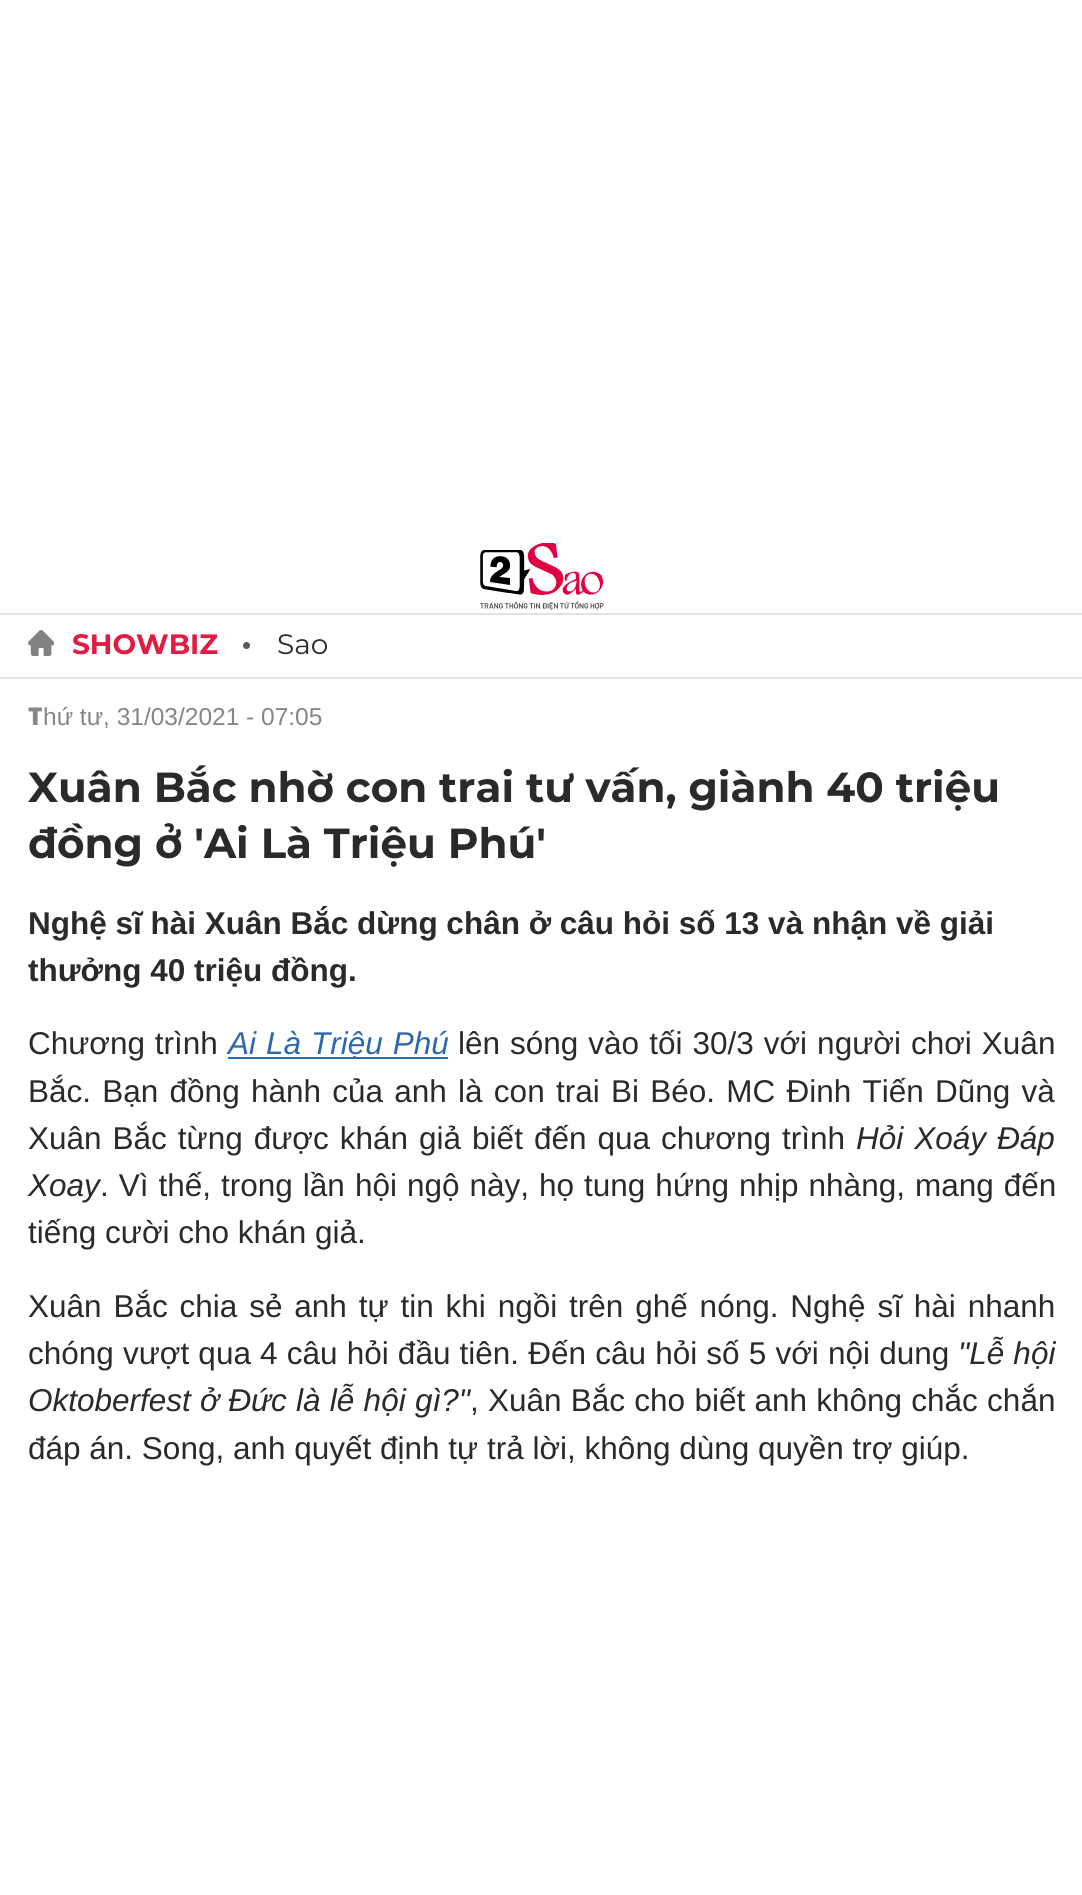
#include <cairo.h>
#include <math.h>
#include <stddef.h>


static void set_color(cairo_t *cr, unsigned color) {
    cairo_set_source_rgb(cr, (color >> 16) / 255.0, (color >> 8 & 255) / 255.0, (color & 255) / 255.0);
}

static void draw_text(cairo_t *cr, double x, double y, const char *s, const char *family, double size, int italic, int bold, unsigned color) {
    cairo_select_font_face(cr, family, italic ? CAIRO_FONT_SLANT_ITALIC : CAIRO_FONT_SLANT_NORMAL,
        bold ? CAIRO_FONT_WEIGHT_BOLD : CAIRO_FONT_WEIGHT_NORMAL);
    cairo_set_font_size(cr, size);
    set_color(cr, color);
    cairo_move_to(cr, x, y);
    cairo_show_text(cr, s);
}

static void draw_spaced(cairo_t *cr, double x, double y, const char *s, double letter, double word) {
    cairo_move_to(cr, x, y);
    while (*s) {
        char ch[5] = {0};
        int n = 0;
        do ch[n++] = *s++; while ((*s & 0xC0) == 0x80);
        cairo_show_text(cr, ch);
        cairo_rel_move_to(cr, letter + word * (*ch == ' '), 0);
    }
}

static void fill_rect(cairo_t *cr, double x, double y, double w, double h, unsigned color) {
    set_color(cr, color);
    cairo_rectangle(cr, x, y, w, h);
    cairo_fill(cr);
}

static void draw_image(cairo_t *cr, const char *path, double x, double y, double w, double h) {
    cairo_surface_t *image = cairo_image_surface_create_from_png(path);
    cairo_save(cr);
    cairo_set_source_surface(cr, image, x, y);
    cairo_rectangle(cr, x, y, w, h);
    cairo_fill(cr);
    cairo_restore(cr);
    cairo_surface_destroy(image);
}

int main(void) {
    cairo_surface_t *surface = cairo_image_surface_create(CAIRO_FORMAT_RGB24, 1082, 1895);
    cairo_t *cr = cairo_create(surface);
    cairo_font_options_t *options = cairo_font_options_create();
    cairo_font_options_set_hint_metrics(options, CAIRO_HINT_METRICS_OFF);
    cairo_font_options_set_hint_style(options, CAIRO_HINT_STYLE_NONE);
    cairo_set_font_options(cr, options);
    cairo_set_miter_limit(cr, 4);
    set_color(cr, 0xFFFFFF);
    cairo_paint(cr);
    fill_rect(cr, 0, 613, 1082, 2, 0xE2E2E2);
    draw_image(cr, "assets/img1.png", 480, 543, 124, 67);
    fill_rect(cr, 0, 677, 1082, 2, 0xE2E2E2);
    draw_image(cr, "assets/img2.png", 28, 630, 26, 26);
    draw_text(cr, 72, 654, "SHOWBIZ", "Montserrat", 28, 0, 1, 0xE01C43);
    set_color(cr, 0x5A5A5A);
    cairo_new_path(cr);
    cairo_arc(cr, 246.5, 645.5, 3.5, 0, 2 * M_PI);
    cairo_fill(cr);
    draw_text(cr, 277, 654, "Sao", "Montserrat", 28, 0, 0, 0x2A2A2A);
    draw_text(cr, 28, 725, "T", "Noto Sans Black", 24.5, 0, 0, 0x868686);
    draw_text(cr, 43, 725, "hứ tư, 31/03/2021 - 07:05", "Liberation Sans", 24.5, 0, 0, 0x868686);
    draw_text(cr, 28, 802, "Xuân Bắc nhờ con trai tư vấn, giành 40 triệu", "Montserrat", 42, 0, 1, 0x2A2A2A);
    draw_text(cr, 28, 858, "đồng ở 'Ai Là Triệu Phú'", "Montserrat", 42, 0, 1, 0x2A2A2A);
    draw_text(cr, 28, 934, "Nghệ sĩ hài Xuân Bắc dừng chân ở câu hỏi số 13 và nhận về giải", "Liberation Sans", 31.5, 0, 1, 0x2A2A2A);
    draw_text(cr, 28, 981, "thưởng 40 triệu đồng.", "Liberation Sans", 31.5, 0, 1, 0x2A2A2A);
    cairo_select_font_face(cr, "Liberation Sans", CAIRO_FONT_SLANT_NORMAL, CAIRO_FONT_WEIGHT_NORMAL);
    draw_spaced(cr, 28, 1054, "Chương trình", 0, 1);
    fill_rect(cr, 228, 1057, 220, 2, 0x2D67AD);
    cairo_select_font_face(cr, "Liberation Sans", CAIRO_FONT_SLANT_ITALIC, CAIRO_FONT_WEIGHT_NORMAL);
    draw_spaced(cr, 228, 1054, "Ai Là Triệu Phú", 0, 1.25);
    cairo_select_font_face(cr, "Liberation Sans", CAIRO_FONT_SLANT_NORMAL, CAIRO_FONT_WEIGHT_NORMAL);
    set_color(cr, 0x2A2A2A);
    draw_spaced(cr, 458, 1054, "lên sóng vào tối 30/3 với người chơi Xuân", 0, 1.25);
    draw_spaced(cr, 28, 1102, "Bắc. Bạn đồng hành của anh là con trai Bi Béo. MC Đinh Tiến Dũng và", 0, 2.5);
    draw_spaced(cr, 28, 1149, "Xuân Bắc từng được khán giả biết đến qua chương trình", 0, 2.25);
    cairo_select_font_face(cr, "Liberation Sans", CAIRO_FONT_SLANT_ITALIC, CAIRO_FONT_WEIGHT_NORMAL);
    draw_spaced(cr, 856, 1149, "Hỏi Xoáy Đáp", 0, 2.25);
    draw_text(cr, 28, 1196, "Xoay", "Liberation Sans", 31.5, 1, 0, 0x2A2A2A);
    cairo_select_font_face(cr, "Liberation Sans", CAIRO_FONT_SLANT_NORMAL, CAIRO_FONT_WEIGHT_NORMAL);
    draw_spaced(cr, 100, 1196, ". Vì thế, trong lần hội ngộ này, họ tung hứng nhịp nhàng, mang đến", 0, 1.25);
    draw_text(cr, 28, 1243, "tiếng cười cho khán giả.", "Liberation Sans", 31.5, 0, 0, 0x2A2A2A);
    draw_spaced(cr, 28, 1317, "Xuân Bắc chia sẻ anh tự tin khi ngồi trên ghế nóng. Nghệ sĩ hài nhanh", 0, 3.1);
    draw_spaced(cr, 28, 1364, "chóng vượt qua 4 câu hỏi đầu tiên. Đến câu hỏi số 5 với nội dung", 0, 0.4);
    cairo_select_font_face(cr, "Liberation Sans", CAIRO_FONT_SLANT_ITALIC, CAIRO_FONT_WEIGHT_NORMAL);
    draw_spaced(cr, 958, 1364, "\"Lễ hội", 0, 0.4);
    draw_spaced(cr, 28, 1411, "Oktoberfest ở Đức là lễ hội gì?\"", 0, 0.5);
    cairo_select_font_face(cr, "Liberation Sans", CAIRO_FONT_SLANT_NORMAL, CAIRO_FONT_WEIGHT_NORMAL);
    draw_spaced(cr, 470, 1411, ", Xuân Bắc cho biết anh không chắc chắn", 0, 0.5);
    draw_text(cr, 28, 1459, "đáp án. Song, anh quyết định tự trả lời, không dùng quyền trợ giúp.", "Liberation Sans", 31.5, 0, 0, 0x2A2A2A);
    cairo_surface_write_to_png(surface, "output.png");
    cairo_font_options_destroy(options);
    cairo_destroy(cr);
    cairo_surface_destroy(surface);
    return 0;
}
